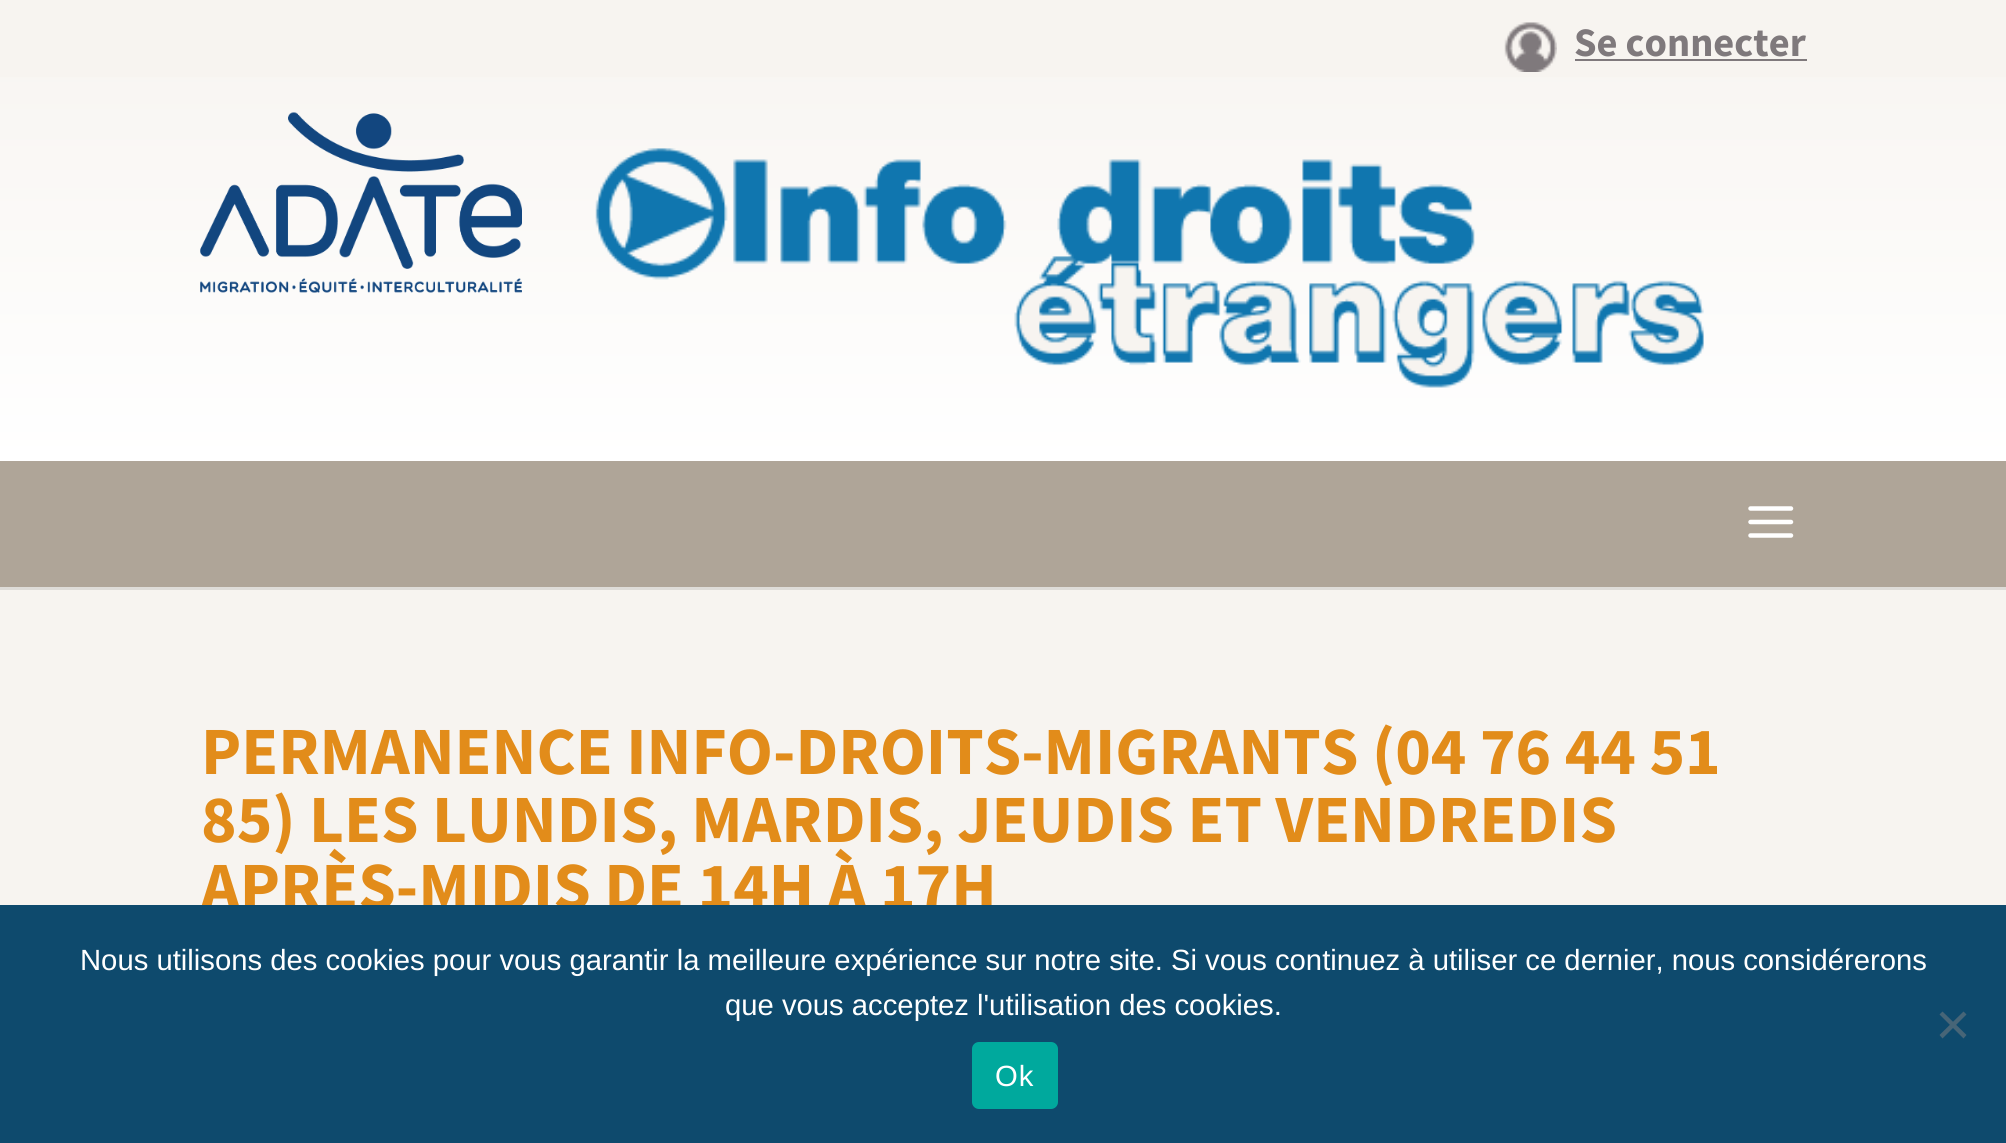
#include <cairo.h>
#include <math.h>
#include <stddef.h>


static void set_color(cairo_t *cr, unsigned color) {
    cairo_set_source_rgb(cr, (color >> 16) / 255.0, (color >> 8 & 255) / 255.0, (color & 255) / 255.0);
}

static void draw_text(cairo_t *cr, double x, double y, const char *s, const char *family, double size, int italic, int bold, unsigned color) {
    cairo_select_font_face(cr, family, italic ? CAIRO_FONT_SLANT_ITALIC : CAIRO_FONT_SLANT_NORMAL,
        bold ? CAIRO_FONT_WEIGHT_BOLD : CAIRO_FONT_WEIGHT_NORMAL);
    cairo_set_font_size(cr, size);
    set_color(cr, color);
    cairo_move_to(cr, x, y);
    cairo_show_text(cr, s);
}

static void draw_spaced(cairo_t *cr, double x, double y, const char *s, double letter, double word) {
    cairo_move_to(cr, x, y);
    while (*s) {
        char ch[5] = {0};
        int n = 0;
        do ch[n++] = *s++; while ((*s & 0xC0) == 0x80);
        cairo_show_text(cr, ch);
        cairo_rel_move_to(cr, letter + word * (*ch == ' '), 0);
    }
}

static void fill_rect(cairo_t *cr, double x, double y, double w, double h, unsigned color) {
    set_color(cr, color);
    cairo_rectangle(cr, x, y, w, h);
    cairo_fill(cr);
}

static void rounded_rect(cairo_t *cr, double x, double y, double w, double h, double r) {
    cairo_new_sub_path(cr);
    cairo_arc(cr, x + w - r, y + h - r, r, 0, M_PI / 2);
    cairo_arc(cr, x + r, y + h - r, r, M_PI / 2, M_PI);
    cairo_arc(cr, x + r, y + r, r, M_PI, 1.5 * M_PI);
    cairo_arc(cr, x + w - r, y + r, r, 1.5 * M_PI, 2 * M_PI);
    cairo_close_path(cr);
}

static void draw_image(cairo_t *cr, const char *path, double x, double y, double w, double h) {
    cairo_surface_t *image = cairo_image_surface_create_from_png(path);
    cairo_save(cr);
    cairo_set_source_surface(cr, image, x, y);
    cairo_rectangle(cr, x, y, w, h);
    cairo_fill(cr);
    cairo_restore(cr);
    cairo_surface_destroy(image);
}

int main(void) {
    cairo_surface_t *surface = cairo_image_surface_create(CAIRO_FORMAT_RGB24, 2006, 1143);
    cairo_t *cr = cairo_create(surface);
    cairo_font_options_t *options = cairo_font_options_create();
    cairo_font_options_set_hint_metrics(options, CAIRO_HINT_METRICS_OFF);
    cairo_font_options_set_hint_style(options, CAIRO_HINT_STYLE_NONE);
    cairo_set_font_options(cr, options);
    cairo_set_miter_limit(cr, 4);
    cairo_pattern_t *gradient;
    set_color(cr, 0xF7F4F0);
    cairo_paint(cr);
    gradient = cairo_pattern_create_linear(1004, 0, 1004, 461);
    cairo_pattern_add_color_stop_rgba(gradient, 0, 0.969, 0.957, 0.941, 1);
    cairo_pattern_add_color_stop_rgba(gradient, 1, 1, 1, 1, 1);
    cairo_set_source(cr, gradient);
    cairo_pattern_destroy(gradient);
    cairo_rectangle(cr, 0, 77, 2006, 384);
    cairo_fill(cr);
    draw_image(cr, "assets/img1.png", 1504, 22, 53, 50);
    draw_text(cr, 1574, 56, "Se connecter", "Source Sans Pro", 40.5, 0, 1, 0x7F797C);
    fill_rect(cr, 1575, 59, 232, 2, 0x7F797C);
    draw_image(cr, "assets/img2.png", 200, 112, 322, 181);
    draw_image(cr, "assets/img3.png", 595, 148, 1109, 240);
    fill_rect(cr, 0, 587, 2006, 3, 0xDEDCD8);
    fill_rect(cr, 0, 461, 2006, 126, 0xAFA598);
    draw_image(cr, "assets/img4.png", 1748, 506, 46, 32);
    draw_text(cr, 201, 774, "PERMANENCE INFO-DROITS-MIGRANTS (04 76 44 51", "Source Sans Pro", 67.5, 0, 1, 0xE28C1A);
    draw_text(cr, 201, 842, "85) LES LUNDIS, MARDIS, JEUDIS ET VENDREDIS", "Source Sans Pro", 67.5, 0, 1, 0xE28C1A);
    draw_text(cr, 201, 909, "APRÈS-MIDIS DE 14H À 17H", "Source Sans Pro", 67.5, 0, 1, 0xE28C1A);
    fill_rect(cr, 0, 905, 2006, 238, 0x0E4A6D);
    draw_text(cr, 80, 970, "Nous utilisons des cookies pour vous garantir la meilleure expérience sur notre site. Si vous continuez à utiliser ce dernier, nous considérerons", "Liberation Sans", 29.25, 0, 0, 0xFFFFFF);
    draw_text(cr, 725, 1015, "que vous acceptez l'utilisation des cookies.", "Liberation Sans", 29.25, 0, 0, 0xFFFFFF);
    set_color(cr, 0x476577);
    cairo_new_path(cr);
    cairo_move_to(cr, 1963.5, 1011.5);
    cairo_line_to(cr, 1966.5, 1014.5);
    cairo_line_to(cr, 1942.5, 1038.5);
    cairo_line_to(cr, 1939.5, 1035);
    cairo_close_path(cr);
    cairo_fill(cr);
    cairo_new_path(cr);
    cairo_move_to(cr, 1939.5, 1014.5);
    cairo_line_to(cr, 1942.5, 1011.5);
    cairo_line_to(cr, 1966.5, 1035);
    cairo_line_to(cr, 1963.5, 1038.5);
    cairo_close_path(cr);
    cairo_fill(cr);
    set_color(cr, 0x00A99D);
    rounded_rect(cr, 972, 1042, 86, 67, 7);
    cairo_fill(cr);
    set_color(cr, 0xFFFFFF);
    draw_spaced(cr, 995, 1086, "Ok", 1, 0);
    cairo_surface_write_to_png(surface, "output.png");
    cairo_font_options_destroy(options);
    cairo_destroy(cr);
    cairo_surface_destroy(surface);
    return 0;
}
